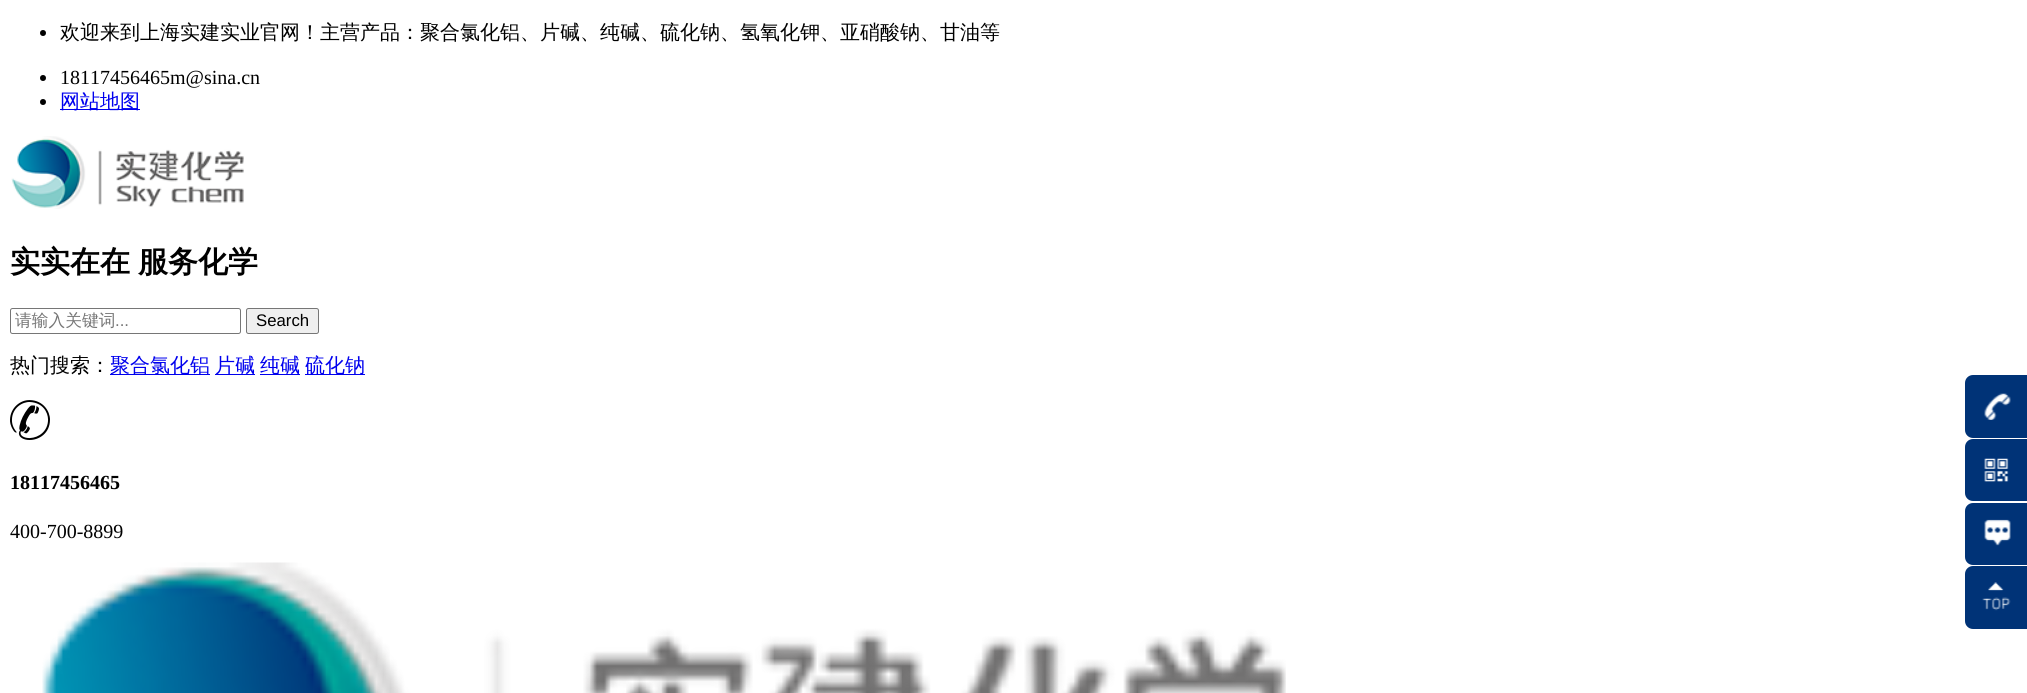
#include <cairo.h>
#include <math.h>
#include <stddef.h>


static void set_color(cairo_t *cr, unsigned color) {
    cairo_set_source_rgb(cr, (color >> 16) / 255.0, (color >> 8 & 255) / 255.0, (color & 255) / 255.0);
}

static void draw_text(cairo_t *cr, double x, double y, const char *s, const char *family, double size, int italic, int bold, unsigned color) {
    cairo_select_font_face(cr, family, italic ? CAIRO_FONT_SLANT_ITALIC : CAIRO_FONT_SLANT_NORMAL,
        bold ? CAIRO_FONT_WEIGHT_BOLD : CAIRO_FONT_WEIGHT_NORMAL);
    cairo_set_font_size(cr, size);
    set_color(cr, color);
    cairo_move_to(cr, x, y);
    cairo_show_text(cr, s);
}

static void draw_spaced(cairo_t *cr, double x, double y, const char *s, double letter, double word) {
    cairo_move_to(cr, x, y);
    while (*s) {
        char ch[5] = {0};
        int n = 0;
        do ch[n++] = *s++; while ((*s & 0xC0) == 0x80);
        cairo_show_text(cr, ch);
        cairo_rel_move_to(cr, letter + word * (*ch == ' '), 0);
    }
}

static void fill_rect(cairo_t *cr, double x, double y, double w, double h, unsigned color) {
    set_color(cr, color);
    cairo_rectangle(cr, x, y, w, h);
    cairo_fill(cr);
}

static void rounded_rect(cairo_t *cr, double x, double y, double w, double h, double r) {
    cairo_new_sub_path(cr);
    cairo_arc(cr, x + w - r, y + h - r, r, 0, M_PI / 2);
    cairo_arc(cr, x + r, y + h - r, r, M_PI / 2, M_PI);
    cairo_arc(cr, x + r, y + r, r, M_PI, 1.5 * M_PI);
    cairo_arc(cr, x + w - r, y + r, r, 1.5 * M_PI, 2 * M_PI);
    cairo_close_path(cr);
}

static void draw_image(cairo_t *cr, const char *path, double x, double y, double w, double h) {
    cairo_surface_t *image = cairo_image_surface_create_from_png(path);
    cairo_save(cr);
    cairo_set_source_surface(cr, image, x, y);
    cairo_rectangle(cr, x, y, w, h);
    cairo_fill(cr);
    cairo_restore(cr);
    cairo_surface_destroy(image);
}

int main(void) {
    cairo_surface_t *surface = cairo_image_surface_create(CAIRO_FORMAT_RGB24, 2027, 693);
    cairo_t *cr = cairo_create(surface);
    cairo_font_options_t *options = cairo_font_options_create();
    cairo_font_options_set_hint_metrics(options, CAIRO_HINT_METRICS_OFF);
    cairo_font_options_set_hint_style(options, CAIRO_HINT_STYLE_NONE);
    cairo_set_font_options(cr, options);
    cairo_set_miter_limit(cr, 4);
    set_color(cr, 0xFFFFFF);
    cairo_paint(cr);
    set_color(cr, 0x000000);
    cairo_arc(cr, 43, 33, 3, 0, 2 * M_PI);
    cairo_fill(cr);
    draw_text(cr, 60, 39, "欢迎来到上海实建实业官网！主营产品：聚合氯化铝、片碱、纯碱、硫化钠、氢氧化钾、亚硝酸钠、甘油等", "WenQuanYi Zen Hei Medium", 20, 0, 0, 0x000000);
    cairo_new_path(cr);
    cairo_arc(cr, 43, 78, 3, 0, 2 * M_PI);
    cairo_fill(cr);
    draw_text(cr, 60, 84, "18117456465m@sina.cn", "Liberation Serif", 20, 0, 0, 0x000000);
    cairo_new_path(cr);
    cairo_arc(cr, 43, 102, 3, 0, 2 * M_PI);
    cairo_fill(cr);
    fill_rect(cr, 60, 109, 80, 1, 0x0000EE);
    draw_text(cr, 60, 108, "网站地图", "WenQuanYi Zen Hei Medium", 20, 0, 0, 0x0000EE);
    draw_image(cr, "assets/img1.png", 11, 136, 233, 73);
    cairo_select_font_face(cr, "WenQuanYi Zen Hei", CAIRO_FONT_SLANT_NORMAL, CAIRO_FONT_WEIGHT_BOLD);
    cairo_set_font_size(cr, 30);
    set_color(cr, 0x000000);
    draw_spaced(cr, 10, 272, "实实在在 服务化学", 0, -1);
    rounded_rect(cr, 10.5, 308.5, 230, 25, 2);
    set_color(cr, 0x767676);
    cairo_set_line_width(cr, 1);
    cairo_stroke(cr);
    draw_text(cr, 15, 326, "请输入关键词", "WenQuanYi Zen Hei Medium", 16.75, 0, 0, 0x757575);
    draw_text(cr, 115, 326, "...", "Liberation Sans", 16.75, 0, 0, 0x757575);
    set_color(cr, 0xEFEFEF);
    rounded_rect(cr, 246.5, 308.5, 72, 25, 2);
    cairo_fill_preserve(cr);
    set_color(cr, 0x767676);
    cairo_stroke(cr);
    draw_text(cr, 256, 326, "Search", "Liberation Sans", 16.75, 0, 0, 0x000000);
    draw_text(cr, 10, 372, "热门搜索：", "WenQuanYi Zen Hei Medium", 20, 0, 0, 0x000000);
    fill_rect(cr, 110, 374, 100, 1, 0x0000EE);
    draw_text(cr, 110, 372, "聚合氯化铝", "WenQuanYi Zen Hei Medium", 20, 0, 0, 0x0000EE);
    fill_rect(cr, 215, 374, 40, 1, 0x0000EE);
    draw_text(cr, 215, 372, "片碱", "WenQuanYi Zen Hei Medium", 20, 0, 0, 0x0000EE);
    fill_rect(cr, 260, 374, 40, 1, 0x0000EE);
    draw_text(cr, 260, 372, "纯碱", "WenQuanYi Zen Hei Medium", 20, 0, 0, 0x0000EE);
    fill_rect(cr, 305, 374, 60, 1, 0x0000EE);
    draw_text(cr, 305, 372, "硫化钠", "WenQuanYi Zen Hei Medium", 20, 0, 0, 0x0000EE);
    draw_image(cr, "assets/img2.png", 10, 400, 40, 40);
    draw_text(cr, 10, 489, "18117456465", "Liberation Serif", 20, 0, 1, 0x000000);
    draw_text(cr, 10, 538, "400-700-8899", "Liberation Serif", 20, 0, 0, 0x000000);
    draw_image(cr, "assets/img3.png", 42, 562, 1244, 131);
    set_color(cr, 0x003377);
    rounded_rect(cr, 1965, 375, 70, 63, 8);
    cairo_fill(cr);
    draw_image(cr, "assets/img4.png", 1984, 393, 27, 27);
    rounded_rect(cr, 1965, 439, 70, 62, 8);
    cairo_fill(cr);
    draw_image(cr, "assets/img5.png", 1984, 458, 25, 24);
    rounded_rect(cr, 1965, 503, 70, 62, 8);
    cairo_fill(cr);
    draw_image(cr, "assets/img6.png", 1984, 519, 27, 27);
    rounded_rect(cr, 1965, 566, 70, 63, 8);
    cairo_fill(cr);
    draw_image(cr, "assets/img7.png", 1982, 582, 29, 29);
    cairo_surface_write_to_png(surface, "output.png");
    cairo_font_options_destroy(options);
    cairo_destroy(cr);
    cairo_surface_destroy(surface);
    return 0;
}
